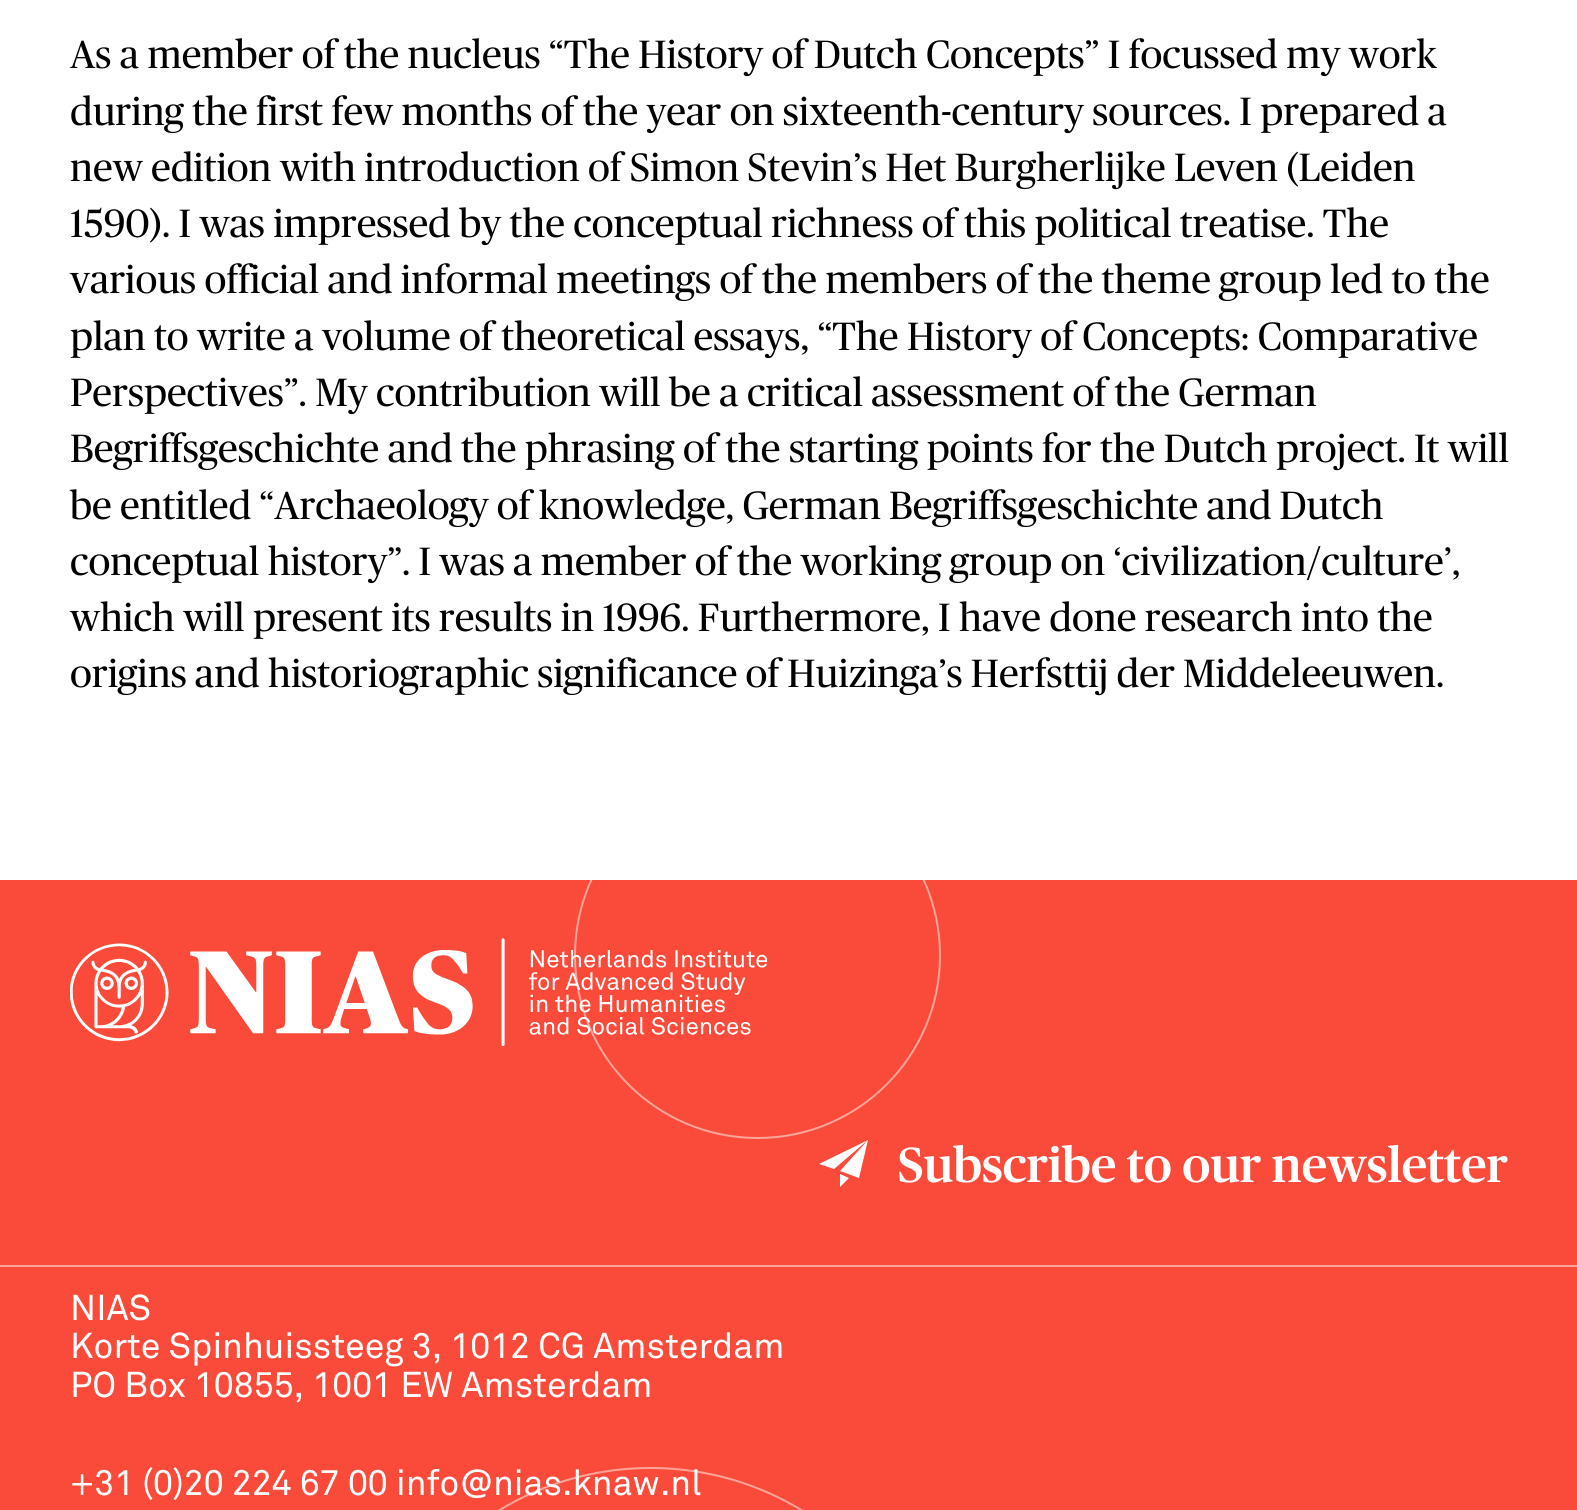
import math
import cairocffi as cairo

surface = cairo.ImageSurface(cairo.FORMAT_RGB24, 1577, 1510)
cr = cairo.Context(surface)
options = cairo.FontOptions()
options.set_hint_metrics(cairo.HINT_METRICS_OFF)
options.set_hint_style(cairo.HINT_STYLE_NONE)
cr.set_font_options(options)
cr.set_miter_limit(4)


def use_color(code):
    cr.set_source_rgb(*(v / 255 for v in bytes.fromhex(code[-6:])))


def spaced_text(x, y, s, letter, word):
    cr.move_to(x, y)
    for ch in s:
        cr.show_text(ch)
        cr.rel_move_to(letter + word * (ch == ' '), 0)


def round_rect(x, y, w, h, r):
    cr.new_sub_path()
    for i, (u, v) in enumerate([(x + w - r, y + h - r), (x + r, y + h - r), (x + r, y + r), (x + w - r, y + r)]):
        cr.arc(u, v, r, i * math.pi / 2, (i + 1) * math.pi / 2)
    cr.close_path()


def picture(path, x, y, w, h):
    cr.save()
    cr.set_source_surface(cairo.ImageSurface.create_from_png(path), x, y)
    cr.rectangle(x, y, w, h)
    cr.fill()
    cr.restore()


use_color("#ffffff")
cr.paint()
cr.select_font_face("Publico")
cr.set_font_size(39.4)
use_color("#000000")
cr.move_to(70, 68)
cr.show_text("As a member of the nucleus “The History of Dutch Concepts” I focussed my work")
cr.move_to(70, 125)
cr.show_text("during the first few months of the year on sixteenth-century sources. I prepared a")
spaced_text(70, 181, "new edition with introduction of Simon Stevin’s Het Burgherlijke Leven (Leiden", 0, -0.1)
cr.move_to(70, 237)
cr.show_text("1590). I was impressed by the conceptual richness of this political treatise. The")
cr.move_to(70, 293)
cr.show_text("various official and informal meetings of the members of the theme group led to the")
cr.move_to(70, 350)
cr.show_text("plan to write a volume of theoretical essays, “The History of Concepts: Comparative")
cr.move_to(70, 406)
cr.show_text("Perspectives”. My contribution will be a critical assessment of the German")
cr.move_to(70, 462)
cr.show_text("Begriffsgeschichte and the phrasing of the starting points for the Dutch project. It will")
spaced_text(70, 519, "be entitled “Archaeology of knowledge, German Begriffsgeschichte and Dutch", 0, -0.25)
spaced_text(70, 575, "conceptual history”. I was a member of the working group on ‘civilization/culture’,", 0, -0.1)
cr.move_to(70, 631)
cr.show_text("which will present its results in 1996. Furthermore, I have done research into the")
spaced_text(70, 687, "origins and historiographic significance of Huizinga’s Herfsttij der Middeleeuwen.", 0, -0.25)
use_color("#fa4a39")
cr.rectangle(0, 880, 1577, 630)
cr.fill()
picture("img1.png", 70, 938, 697, 108)
cr.save()
cr.rectangle(0, 880, 1577, 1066)
cr.clip()
cr.arc(757.5, 955.5, 182.5, 0, 2 * math.pi)
cr.set_source_rgba(1, 1, 1, 0.5)
cr.stroke()
cr.restore()
use_color("#ffffff")
cr.new_path()
cr.move_to(840, 1171)
cr.line_to(859, 1178)
cr.line_to(868, 1140)
cr.close_path()
cr.move_to(834, 1169)
cr.line_to(868, 1140)
cr.line_to(819, 1164)
cr.close_path()
cr.move_to(840, 1174)
cr.line_to(840, 1187)
cr.line_to(849, 1178)
cr.close_path()
cr.fill()
cr.select_font_face("Publico Medium")
cr.set_font_size(49.1)
cr.move_to(898, 1182)
cr.show_text("Subscribe to our newsletter")
cr.select_font_face("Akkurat")
cr.set_font_size(35.6)
cr.move_to(70, 1320)
cr.show_text("NIAS")
cr.move_to(70, 1358)
cr.show_text("Korte Spinhuissteeg 3, 1012 CG Amsterdam")
cr.move_to(70, 1397)
cr.show_text("PO Box 10855, 1001 EW Amsterdam")
cr.move_to(70, 1495)
cr.show_text("+31 (0)20 224 67 00 info@nias.knaw.nl")
round_rect(359, 1468, 583, 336, 291.5)
cr.set_source_rgba(1, 1, 1, 0.5)
cr.stroke()
use_color("#fda59c")
cr.rectangle(0, 1265, 1577, 2)
cr.fill()
surface.write_to_png("result.png")
